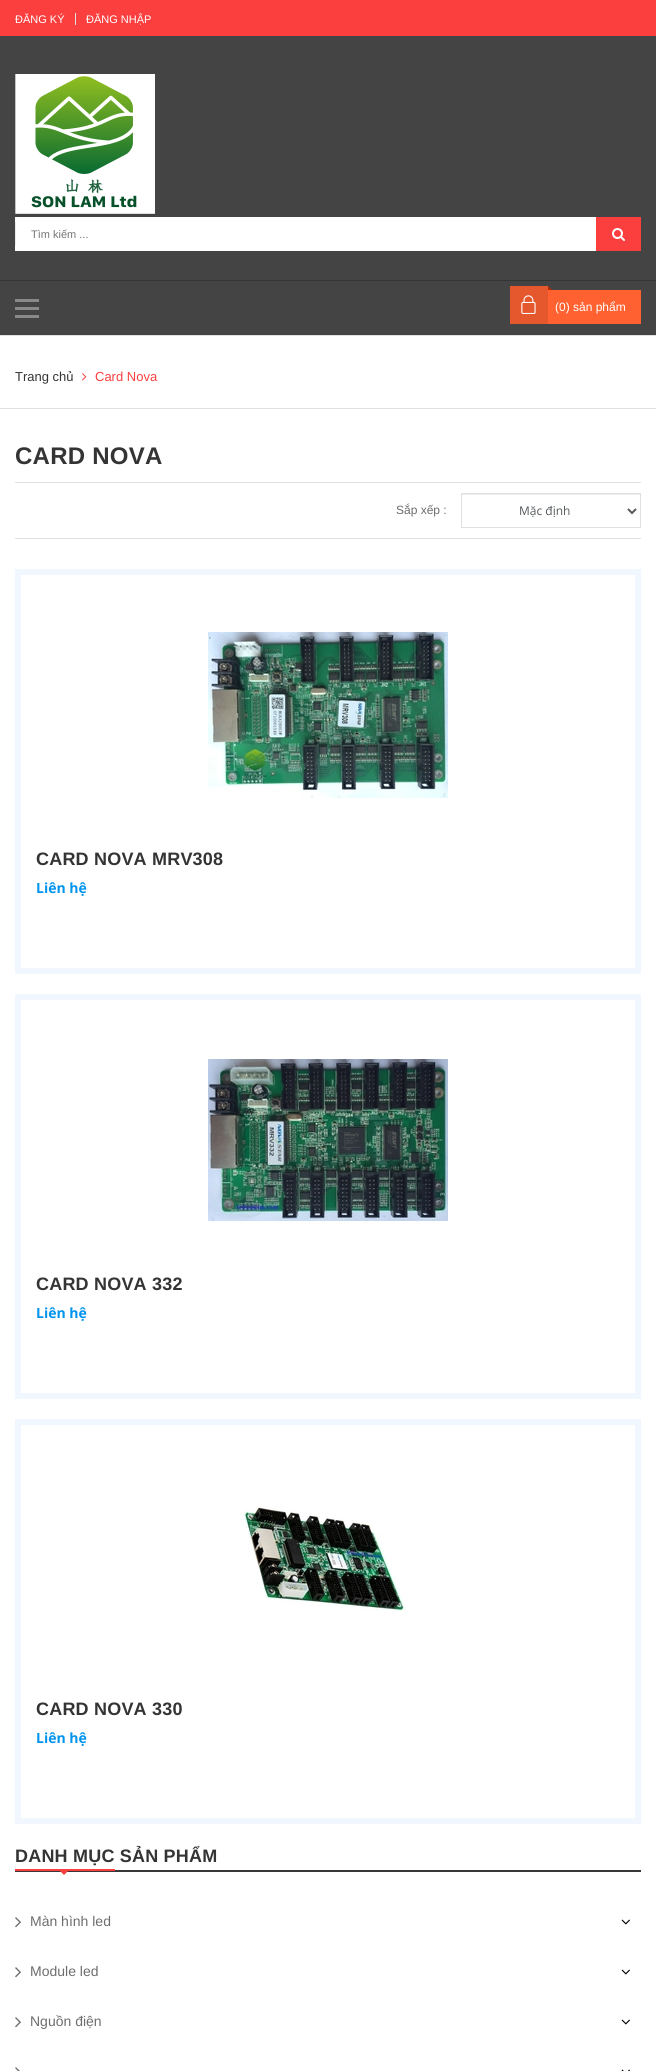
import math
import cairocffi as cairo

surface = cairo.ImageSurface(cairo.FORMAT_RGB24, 656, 2071)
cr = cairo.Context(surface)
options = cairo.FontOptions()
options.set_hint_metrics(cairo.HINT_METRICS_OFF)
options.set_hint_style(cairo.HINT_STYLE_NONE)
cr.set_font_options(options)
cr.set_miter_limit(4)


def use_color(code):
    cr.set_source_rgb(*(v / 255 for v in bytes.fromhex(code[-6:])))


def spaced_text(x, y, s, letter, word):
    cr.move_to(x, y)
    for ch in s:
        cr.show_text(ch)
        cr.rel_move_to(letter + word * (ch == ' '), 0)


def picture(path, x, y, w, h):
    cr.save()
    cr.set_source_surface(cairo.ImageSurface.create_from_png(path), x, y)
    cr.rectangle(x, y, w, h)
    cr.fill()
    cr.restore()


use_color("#ffffff")
cr.paint()
use_color("#fb3f3f")
cr.rectangle(0, 0, 656, 36)
cr.fill()
cr.select_font_face("Liberation Sans")
cr.set_font_size(11)
use_color("#ffffff")
cr.move_to(15, 23)
cr.show_text("ĐĂNG KÝ")
use_color("#e0e0e0")
cr.rectangle(75, 13, 1, 12)
cr.fill()
use_color("#ffffff")
cr.move_to(86, 23)
cr.show_text("ĐĂNG NHẬP")
use_color("#444444")
cr.rectangle(0, 36, 656, 299)
cr.fill()
picture("img1.png", 15, 74, 140, 140)
use_color("#ffffff")
cr.rectangle(15, 217, 581, 34)
cr.fill()
use_color("#ebebeb")
cr.rectangle(15, 222, 1, 24)
cr.fill()
use_color("#757575")
cr.move_to(31, 238)
cr.show_text("Tìm kiếm ...")
use_color("#fb3f3f")
cr.rectangle(596, 217, 45, 34)
cr.fill()
picture("img2.png", 612, 228, 13, 13)
use_color("#ff6131")
cr.rectangle(548, 290, 93, 34)
cr.fill()
use_color("#e5572c")
cr.rectangle(510, 286, 38, 38)
cr.fill()
picture("img3.png", 521, 295, 15, 19)
use_color("#b12900")
cr.new_path()
cr.move_to(552, 290)
cr.line_to(548, 290)
cr.line_to(548, 286)
cr.close_path()
cr.fill()
cr.set_font_size(12)
use_color("#ffffff")
cr.move_to(555, 311)
cr.show_text("(0) sản phẩm")
use_color("#343434")
cr.rectangle(0, 280, 656, 1)
cr.fill()
picture("img4.png", 15, 299, 24, 19)
use_color("#e0e0e0")
cr.rectangle(0, 335, 656, 1)
cr.fill()
cr.rectangle(0, 408, 656, 1)
cr.fill()
cr.set_font_size(13)
use_color("#343434")
cr.move_to(15, 381)
cr.show_text("Trang chủ")
picture("img5.png", 82, 373, 5, 8)
use_color("#fb3f3f")
cr.move_to(95, 381)
cr.show_text("Card Nova")
cr.select_font_face("Liberation Sans", cairo.FONT_SLANT_NORMAL, cairo.FONT_WEIGHT_BOLD)
cr.set_font_size(24)
use_color("#343434")
spaced_text(15, 464, "CARD NOVA", 0.25, 0)
use_color("#e0e0e0")
cr.rectangle(15, 482, 626, 1)
cr.fill()
cr.rectangle(15, 538, 626, 1)
cr.fill()
cr.select_font_face("Liberation Sans")
cr.set_font_size(12)
use_color("#6d6d6d")
cr.move_to(396, 514)
cr.show_text("Sắp xếp :")
use_color("#ececec")
cr.rectangle(462, 494, 178, 1)
cr.fill()
cr.rectangle(461.5, 493.5, 179, 34)
use_color("#e0e0e0")
cr.set_line_width(1)
cr.stroke()
cr.new_path()
cr.move_to(628, 509)
cr.line_to(632, 513)
cr.line_to(636, 509)
use_color("#55595c")
cr.set_line_width(2)
cr.stroke()
cr.select_font_face("Open Sans")
cr.move_to(519, 515)
cr.show_text("Mặc định")
cr.rectangle(18, 572, 620, 399)
use_color("#f0f7ff")
cr.set_line_width(6)
cr.stroke()
picture("img6.png", 208, 632, 240, 166)
cr.select_font_face("Liberation Sans", cairo.FONT_SLANT_NORMAL, cairo.FONT_WEIGHT_BOLD)
cr.set_font_size(18)
use_color("#343434")
spaced_text(36, 865, "CARD NOVA MRV308", 0.2, 0)
cr.select_font_face("Open Sans", cairo.FONT_SLANT_NORMAL, cairo.FONT_WEIGHT_BOLD)
cr.set_font_size(14)
use_color("#0094ee")
cr.move_to(36, 893)
cr.show_text("Liên hệ")
cr.rectangle(18, 997, 620, 399)
use_color("#f0f7ff")
cr.stroke()
picture("img7.png", 208, 1059, 240, 162)
cr.select_font_face("Liberation Sans", cairo.FONT_SLANT_NORMAL, cairo.FONT_WEIGHT_BOLD)
cr.set_font_size(18)
use_color("#343434")
spaced_text(36, 1290, "CARD NOVA 332", 0.2, 0)
cr.select_font_face("Open Sans", cairo.FONT_SLANT_NORMAL, cairo.FONT_WEIGHT_BOLD)
cr.set_font_size(14)
use_color("#0094ee")
cr.move_to(36, 1318)
cr.show_text("Liên hệ")
cr.rectangle(18, 1422, 620, 399)
use_color("#f0f7ff")
cr.stroke()
picture("img8.png", 243, 1507, 162, 105)
cr.select_font_face("Liberation Sans", cairo.FONT_SLANT_NORMAL, cairo.FONT_WEIGHT_BOLD)
cr.set_font_size(18)
use_color("#343434")
spaced_text(36, 1715, "CARD NOVA 330", 0.2, 0)
cr.select_font_face("Open Sans", cairo.FONT_SLANT_NORMAL, cairo.FONT_WEIGHT_BOLD)
cr.set_font_size(14)
use_color("#0094ee")
cr.move_to(36, 1743)
cr.show_text("Liên hệ")
use_color("#383838")
cr.rectangle(15, 1870, 626, 2)
cr.fill()
cr.select_font_face("Liberation Sans", cairo.FONT_SLANT_NORMAL, cairo.FONT_WEIGHT_BOLD)
cr.set_font_size(18)
use_color("#343434")
spaced_text(15, 1862, "DANH MỤC SẢN PHẨM", 0.2, 0)
use_color("#fb3f3f")
cr.rectangle(15, 1869, 100, 2)
cr.fill()
cr.new_path()
cr.move_to(60, 1871)
cr.line_to(68, 1871)
cr.line_to(64, 1875)
cr.close_path()
cr.fill()
picture("img9.png", 15, 1917, 6, 11)
cr.select_font_face("Liberation Sans")
cr.set_font_size(14)
use_color("#6d6d6d")
cr.move_to(30, 1926)
cr.show_text("Màn hình led")
picture("img10.png", 621, 1919, 9, 6)
picture("img9.png", 15, 1967, 6, 11)
cr.move_to(30, 1976)
cr.show_text("Module led")
picture("img10.png", 621, 1969, 9, 6)
picture("img9.png", 15, 2017, 6, 11)
cr.move_to(30, 2026)
cr.show_text("Nguồn điện")
picture("img10.png", 621, 2019, 9, 6)
picture("img11.png", 15, 2067, 5, 4)
picture("img12.png", 621, 2069, 9, 2)
surface.write_to_png("result.png")
